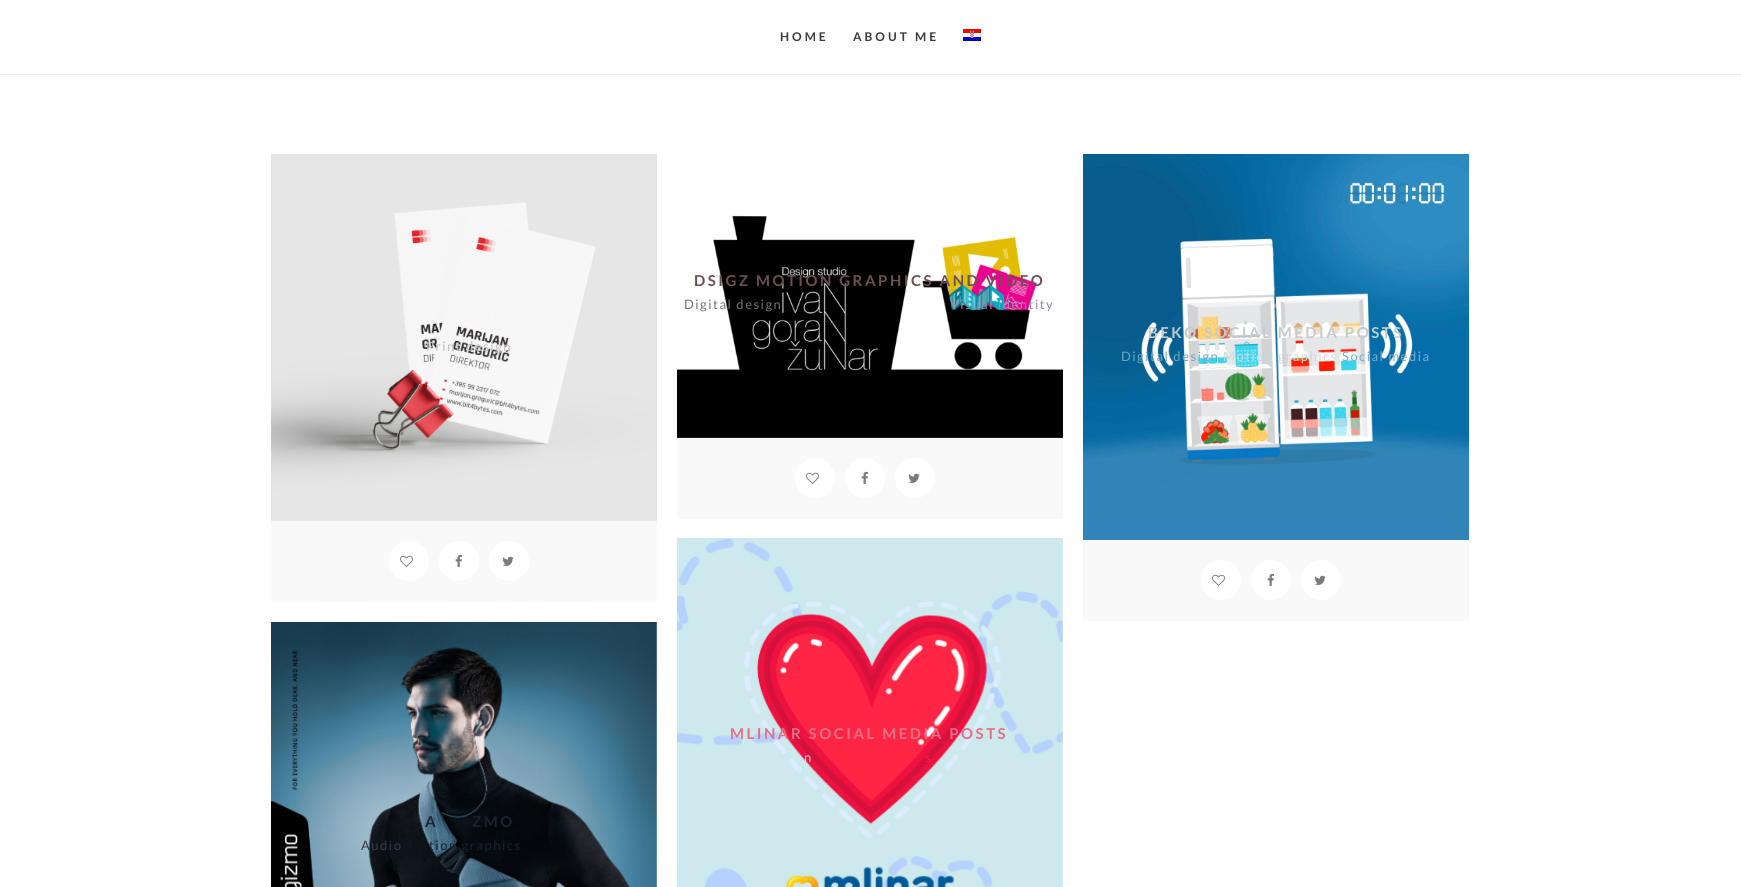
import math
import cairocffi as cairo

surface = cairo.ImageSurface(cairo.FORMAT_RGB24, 1741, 887)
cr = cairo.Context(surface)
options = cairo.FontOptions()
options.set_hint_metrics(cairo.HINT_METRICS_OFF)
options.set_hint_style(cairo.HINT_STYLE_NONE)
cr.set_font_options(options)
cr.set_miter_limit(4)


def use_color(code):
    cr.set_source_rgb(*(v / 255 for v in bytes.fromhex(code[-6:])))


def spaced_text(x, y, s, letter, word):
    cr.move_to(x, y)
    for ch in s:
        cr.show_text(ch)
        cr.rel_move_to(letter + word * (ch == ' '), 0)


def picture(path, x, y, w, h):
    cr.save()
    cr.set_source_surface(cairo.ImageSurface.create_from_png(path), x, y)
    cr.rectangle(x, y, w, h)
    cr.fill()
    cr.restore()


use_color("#ffffff")
cr.paint()
use_color("#ededed")
cr.rectangle(0, 74, 1741, 1)
cr.fill()
cr.select_font_face("Lato", cairo.FONT_SLANT_NORMAL, cairo.FONT_WEIGHT_BOLD)
cr.set_font_size(12)
use_color("#3a3a3a")
spaced_text(780, 41, "HOME", 3, 0)
spaced_text(853, 41, "ABOUT ME", 3, 0)
picture("img1.png", 963, 29, 18, 12)
use_color("#f9f9f9")
cr.rectangle(677, 437, 386, 82)
cr.fill()
picture("img2.png", 677, 154, 386, 284)
cr.set_font_size(15)
use_color("#6d5054")
spaced_text(694, 286, "DSIGZ MOTION GRAPHICS AND VIDEO", 2.5, 0)
cr.select_font_face("Lato")
cr.set_font_size(13)
use_color("#747374")
spaced_text(684, 309, "Digital design", 1.5, 0)
use_color("#958ab2")
spaced_text(950, 309, "Visual identity", 1.5, 0)
use_color("#ffffff")
cr.new_path()
cr.arc(815, 478, 20, 0, 2 * math.pi)
cr.fill()
picture("img3.png", 806, 472, 13, 12)
cr.arc(865, 478, 20, 0, 2 * math.pi)
cr.fill()
picture("img4.png", 861, 471, 7, 13)
cr.arc(915, 478, 20, 0, 2 * math.pi)
cr.fill()
picture("img5.png", 908, 473, 12, 10)
use_color("#f9f9f9")
cr.rectangle(271, 520, 386, 82)
cr.fill()
picture("img6.png", 271, 154, 386, 367)
use_color("#c0bfbf")
spaced_text(426, 351, "Print design", 1.5, 0)
use_color("#ffffff")
cr.new_path()
cr.arc(409, 561, 20, 0, 2 * math.pi)
cr.fill()
picture("img3.png", 400, 555, 13, 12)
cr.arc(459, 561, 20, 0, 2 * math.pi)
cr.fill()
picture("img4.png", 455, 554, 7, 13)
cr.arc(509, 561, 20, 0, 2 * math.pi)
cr.fill()
picture("img5.png", 502, 556, 12, 10)
use_color("#f9f9f9")
cr.rectangle(1083, 540, 386, 81)
cr.fill()
picture("img7.png", 1083, 154, 386, 386)
cr.select_font_face("Lato", cairo.FONT_SLANT_NORMAL, cairo.FONT_WEIGHT_BOLD)
cr.set_font_size(15)
use_color("#c4cccb")
spaced_text(1148, 338, "BEKO SOCIAL MEDIA POSTS", 2.5, 0)
cr.select_font_face("Lato")
cr.set_font_size(13)
use_color("#69a6c2")
spaced_text(1121, 361, "Digital design", 1.5, 0)
use_color("#cadad9")
spaced_text(1223, 361, "Motion graphics", 1.5, 0)
use_color("#76aece")
spaced_text(1342, 361, "Social media", 1.5, 0)
use_color("#ffffff")
cr.new_path()
cr.arc(1221, 580, 20, 0, 2 * math.pi)
cr.fill()
picture("img3.png", 1212, 574, 13, 12)
cr.arc(1271, 580, 20, 0, 2 * math.pi)
cr.fill()
picture("img4.png", 1267, 573, 7, 13)
cr.arc(1321, 580, 20, 0, 2 * math.pi)
cr.fill()
picture("img5.png", 1314, 575, 12, 10)
picture("img8.png", 677, 538, 386, 349)
cr.select_font_face("Lato", cairo.FONT_SLANT_NORMAL, cairo.FONT_WEIGHT_BOLD)
cr.set_font_size(15)
use_color("#e66f88")
spaced_text(730, 739, "MLINAR SOCIAL MEDIA POSTS", 2.5, 0)
cr.select_font_face("Lato")
cr.set_font_size(13)
use_color("#cfd9e1")
spaced_text(804, 762, "n", 1.5, 0)
use_color("#f92143")
spaced_text(925, 762, "s", 1.5, 0)
picture("img9.png", 271, 622, 386, 265)
cr.select_font_face("Lato", cairo.FONT_SLANT_NORMAL, cairo.FONT_WEIGHT_BOLD)
cr.set_font_size(15)
use_color("#18242e")
spaced_text(425, 827, "A", 2.5, 0)
spaced_text(472, 827, "ZMO", 2.5, 0)
cr.select_font_face("Lato")
cr.set_font_size(13)
use_color("#313c45")
spaced_text(361, 850, "Audio", 1.5, 0)
use_color("#18242e")
spaced_text(429, 850, "tion graphics", 1.5, 0)
surface.write_to_png("result.png")
